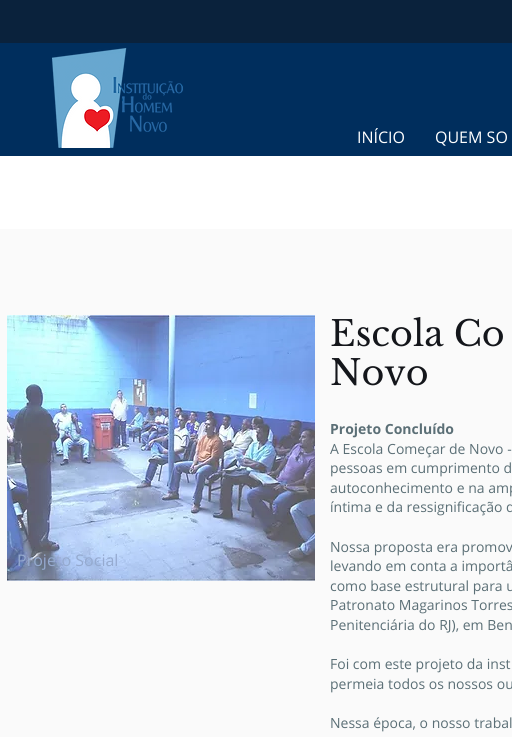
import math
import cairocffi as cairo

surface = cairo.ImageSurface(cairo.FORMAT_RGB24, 512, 737)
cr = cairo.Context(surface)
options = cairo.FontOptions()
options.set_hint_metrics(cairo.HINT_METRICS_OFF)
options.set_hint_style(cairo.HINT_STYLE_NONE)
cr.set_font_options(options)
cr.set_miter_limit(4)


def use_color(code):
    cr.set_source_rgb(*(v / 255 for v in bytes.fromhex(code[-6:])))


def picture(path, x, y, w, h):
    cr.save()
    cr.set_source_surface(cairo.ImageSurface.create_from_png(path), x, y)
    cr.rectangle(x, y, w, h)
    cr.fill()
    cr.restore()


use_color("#ffffff")
cr.paint()
use_color("#002e5d")
cr.rectangle(0, 43, 512, 113)
cr.fill()
use_color("#0a223c")
cr.rectangle(0, 0, 512, 43)
cr.fill()
picture("img1.png", 52, 48, 131, 100)
cr.select_font_face("Open Sans")
cr.set_font_size(16)
use_color("#ffffff")
cr.move_to(357, 143)
cr.show_text("INÍCIO")
cr.move_to(435, 143)
cr.show_text("QUEM SO")
use_color("#fafafa")
cr.rectangle(0, 229, 512, 508)
cr.fill()
cr.select_font_face("Libre Baskerville")
cr.set_font_size(35)
use_color("#14161b")
cr.move_to(330, 346)
cr.show_text("Escola Co")
cr.move_to(330, 385)
cr.show_text("Novo")
picture("img2.png", 7, 315, 308, 266)
cr.select_font_face("Open Sans")
cr.set_font_size(16)
use_color("#95aacf")
cr.move_to(17, 566)
cr.show_text("Projeto Social")
cr.select_font_face("Open Sans", cairo.FONT_SLANT_NORMAL, cairo.FONT_WEIGHT_BOLD)
cr.set_font_size(14)
use_color("#5b6f76")
cr.move_to(330, 434)
cr.show_text("Projeto Concluído")
cr.select_font_face("Open Sans")
cr.move_to(330, 454)
cr.show_text("A Escola Começar de Novo -")
cr.move_to(330, 473)
cr.show_text("pessoas em cumprimento d")
cr.move_to(330, 493)
cr.show_text("autoconhecimento e na amp")
cr.move_to(330, 512)
cr.show_text("íntima e da ressignificação d")
cr.move_to(330, 552)
cr.show_text("Nossa proposta era promov")
cr.move_to(330, 571)
cr.show_text("levando em conta a importâ")
cr.move_to(330, 591)
cr.show_text("como base estrutural para u")
cr.move_to(330, 610)
cr.show_text("Patronato Magarinos Torres")
cr.move_to(330, 630)
cr.show_text("Penitenciária do RJ), em Ben")
cr.move_to(330, 669)
cr.show_text("Foi com este projeto da inst")
cr.move_to(330, 689)
cr.show_text("permeia todos os nossos ou")
cr.move_to(330, 728)
cr.show_text("Nessa época, o nosso trabal")
surface.write_to_png("result.png")
